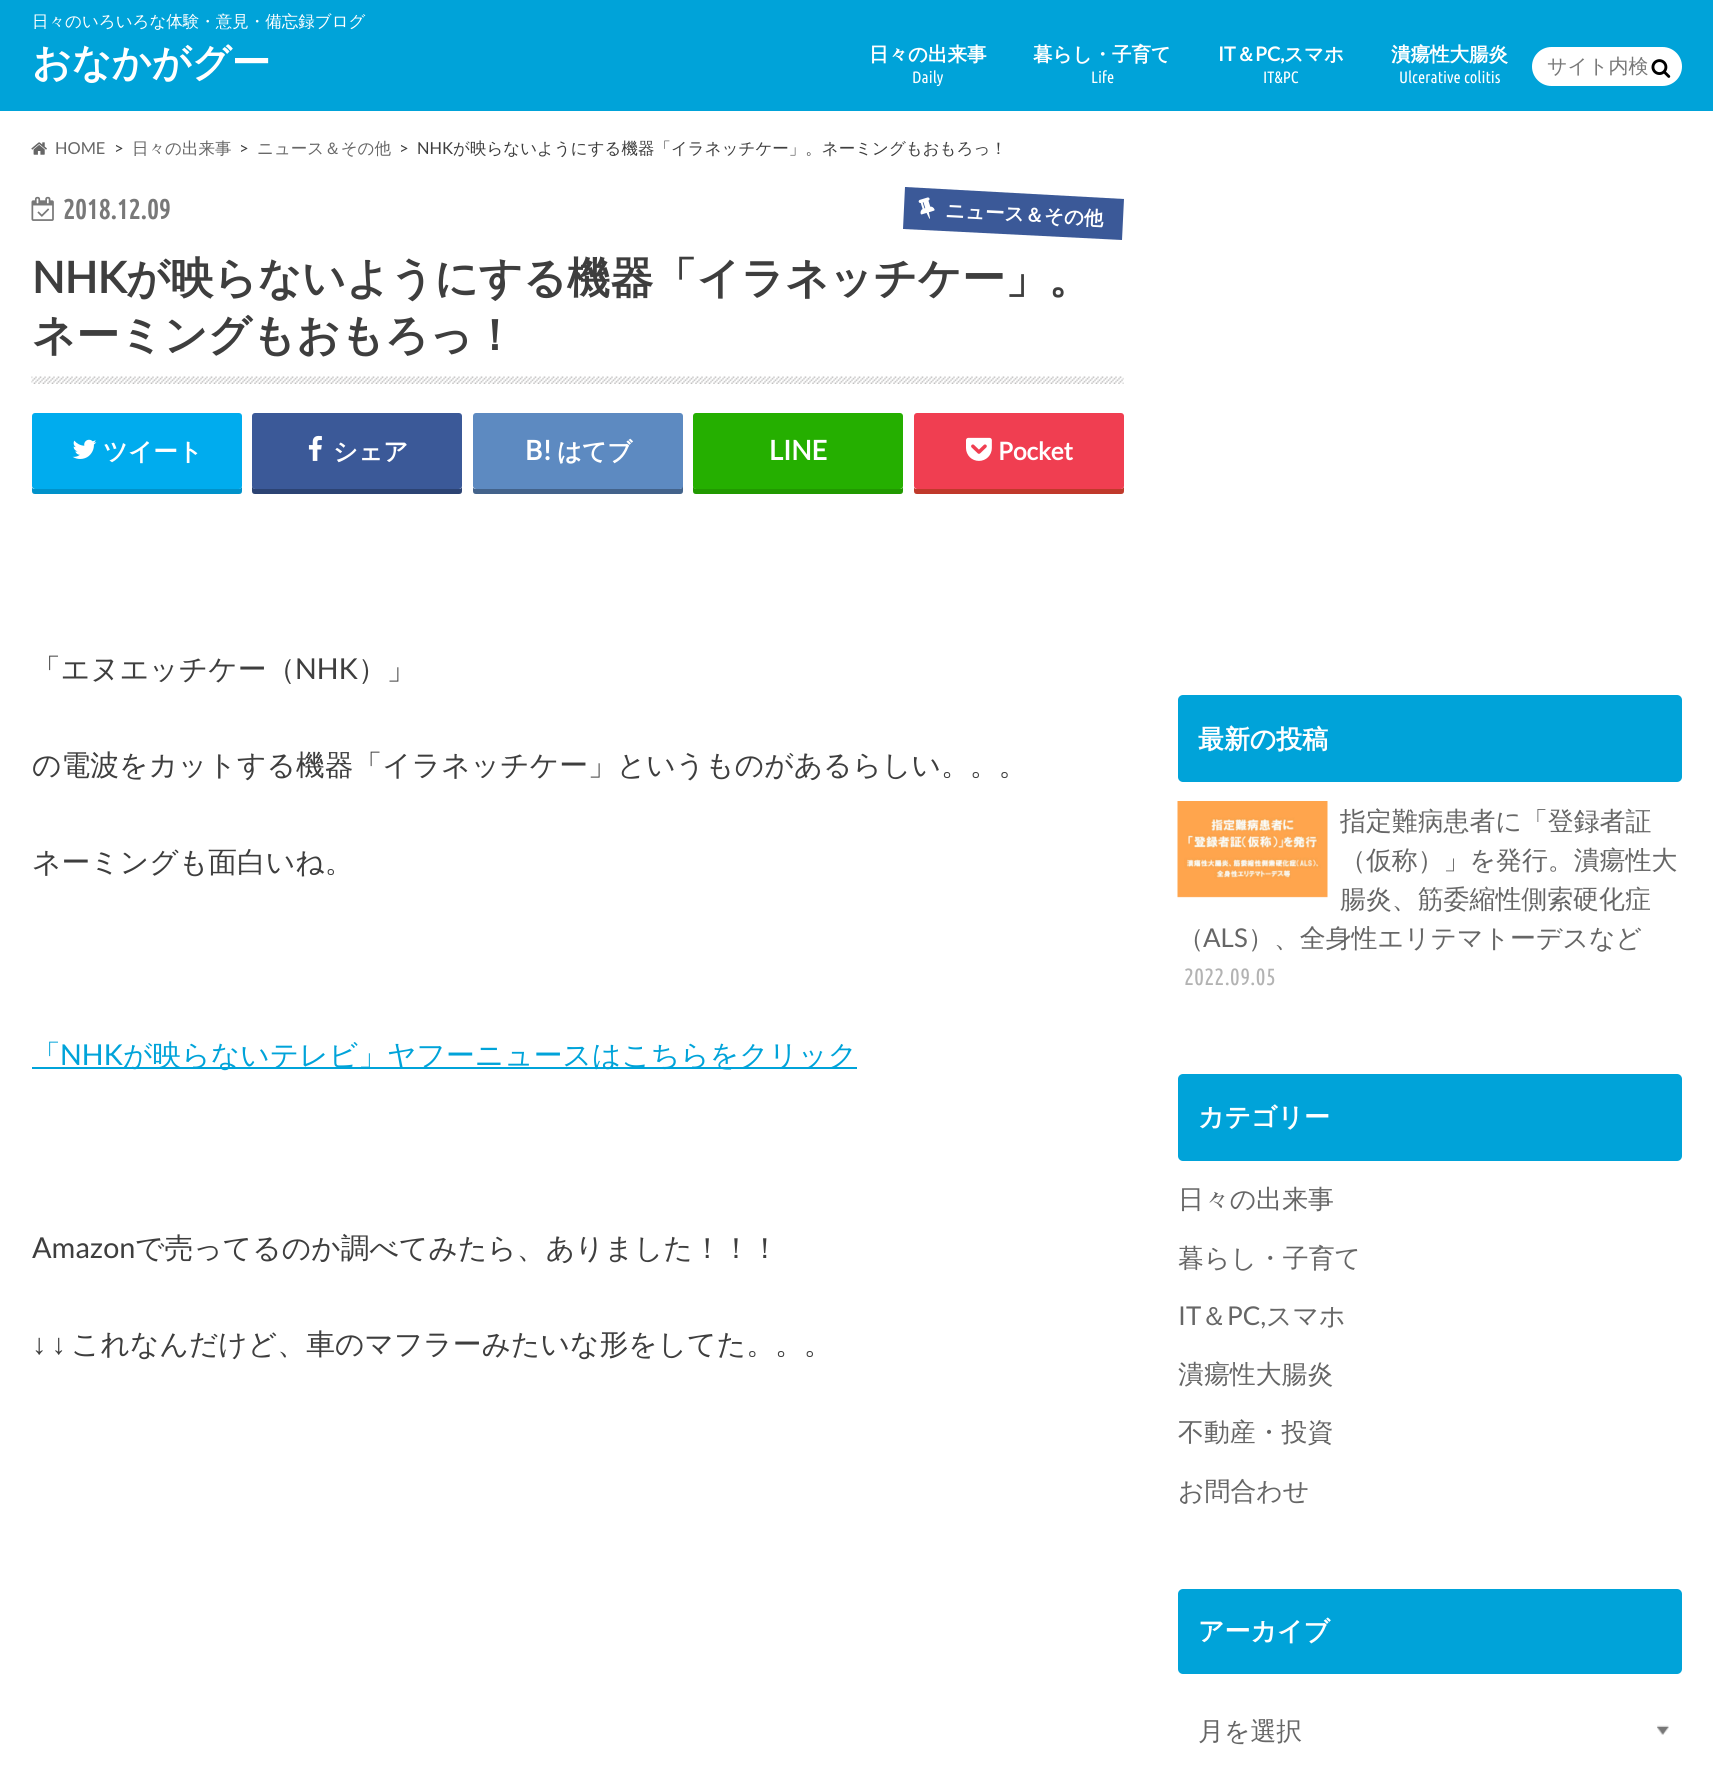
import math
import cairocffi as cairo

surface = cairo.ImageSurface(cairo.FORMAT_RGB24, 1713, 1783)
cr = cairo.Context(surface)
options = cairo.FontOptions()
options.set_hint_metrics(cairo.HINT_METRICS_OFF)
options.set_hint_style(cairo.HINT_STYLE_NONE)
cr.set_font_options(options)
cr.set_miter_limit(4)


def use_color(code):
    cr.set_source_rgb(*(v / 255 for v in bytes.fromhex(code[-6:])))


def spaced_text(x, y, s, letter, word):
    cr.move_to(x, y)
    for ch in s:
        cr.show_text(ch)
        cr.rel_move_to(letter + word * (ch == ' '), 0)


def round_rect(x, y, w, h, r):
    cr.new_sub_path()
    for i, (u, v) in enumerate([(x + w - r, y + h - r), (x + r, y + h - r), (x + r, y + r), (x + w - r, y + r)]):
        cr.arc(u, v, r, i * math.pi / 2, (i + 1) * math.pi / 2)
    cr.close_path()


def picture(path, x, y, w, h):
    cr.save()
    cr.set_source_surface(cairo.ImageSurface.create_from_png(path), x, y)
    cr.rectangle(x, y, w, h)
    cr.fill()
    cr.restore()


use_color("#ffffff")
cr.paint()
use_color("#00a3d9")
cr.rectangle(0, 0, 1713, 111)
cr.fill()
cr.select_font_face("WenQuanYi Zen Hei Medium")
cr.set_font_size(16.5)
use_color("#ffffff")
cr.move_to(32, 27)
cr.show_text("日々のいろいろな体験・意見・備忘録ブログ")
cr.select_font_face("WenQuanYi Zen Hei", cairo.FONT_SLANT_NORMAL, cairo.FONT_WEIGHT_BOLD)
cr.set_font_size(39)
cr.move_to(32, 76)
cr.show_text("おなかがグー")
cr.set_font_size(19.5)
cr.move_to(869, 61)
cr.show_text("日々の出来事")
cr.select_font_face("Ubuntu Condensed")
cr.set_font_size(16.5)
cr.move_to(912, 83)
cr.show_text("Daily")
cr.select_font_face("WenQuanYi Zen Hei", cairo.FONT_SLANT_NORMAL, cairo.FONT_WEIGHT_BOLD)
cr.set_font_size(19.5)
cr.move_to(1033, 61)
cr.show_text("暮らし・子育て")
cr.select_font_face("Ubuntu Condensed")
cr.set_font_size(16.5)
cr.move_to(1091, 83)
cr.show_text("Life")
cr.select_font_face("Lato", cairo.FONT_SLANT_NORMAL, cairo.FONT_WEIGHT_BOLD)
cr.set_font_size(19.5)
cr.move_to(1218, 61)
cr.show_text("IT")
cr.select_font_face("WenQuanYi Zen Hei", cairo.FONT_SLANT_NORMAL, cairo.FONT_WEIGHT_BOLD)
cr.move_to(1236, 61)
cr.show_text("＆")
cr.select_font_face("Lato", cairo.FONT_SLANT_NORMAL, cairo.FONT_WEIGHT_BOLD)
cr.move_to(1255, 61)
cr.show_text("PC,")
cr.select_font_face("WenQuanYi Zen Hei", cairo.FONT_SLANT_NORMAL, cairo.FONT_WEIGHT_BOLD)
cr.move_to(1284, 61)
cr.show_text("スマホ")
cr.select_font_face("Ubuntu Condensed")
cr.set_font_size(16.5)
cr.move_to(1263, 83)
cr.show_text("IT&PC")
cr.select_font_face("WenQuanYi Zen Hei", cairo.FONT_SLANT_NORMAL, cairo.FONT_WEIGHT_BOLD)
cr.set_font_size(19.5)
cr.move_to(1391, 61)
cr.show_text("潰瘍性大腸炎")
cr.select_font_face("Ubuntu Condensed")
cr.set_font_size(16.5)
cr.move_to(1399, 83)
cr.show_text("Ulcerative colitis")
round_rect(1532, 47, 150, 39, 19.5)
cr.fill()
cr.select_font_face("WenQuanYi Zen Hei Medium")
cr.set_font_size(20)
use_color("#787878")
cr.move_to(1547, 73)
cr.show_text("サイト内検")
picture("img1.png", 1651, 59, 20, 19)
picture("img2.png", 31, 142, 16, 13)
cr.select_font_face("Lato")
cr.set_font_size(16.5)
use_color("#666666")
cr.move_to(55, 154)
cr.show_text("HOME")
use_color("#3e3e3e")
cr.move_to(114, 154)
cr.show_text(">")
cr.select_font_face("WenQuanYi Zen Hei Medium")
use_color("#666666")
cr.move_to(132, 154)
cr.show_text("日々の出来事")
cr.select_font_face("Lato")
use_color("#3e3e3e")
cr.move_to(239, 154)
cr.show_text(">")
cr.select_font_face("WenQuanYi Zen Hei Medium")
use_color("#666666")
cr.move_to(257, 154)
cr.show_text("ニュース＆その他")
cr.select_font_face("Lato")
use_color("#3e3e3e")
cr.move_to(399, 154)
cr.show_text(">")
cr.move_to(417, 154)
cr.show_text("NHK")
cr.select_font_face("WenQuanYi Zen Hei Medium")
cr.move_to(453, 154)
cr.show_text("が映らないようにする機器「イラネッチケー」。ネーミングもおもろっ！")
picture("img3.png", 31, 196, 23, 25)
cr.select_font_face("Ubuntu Condensed", cairo.FONT_SLANT_NORMAL, cairo.FONT_WEIGHT_BOLD)
cr.set_font_size(27.5)
use_color("#787878")
cr.move_to(63, 219)
cr.show_text("2018.12.09")
use_color("#3b5998")
cr.new_path()
cr.move_to(905, 187)
cr.line_to(1124, 199)
cr.line_to(1122, 240)
cr.line_to(903, 229)
cr.close_path()
cr.fill()
picture("img4.png", 918, 197, 17, 22)
cr.select_font_face("WenQuanYi Zen Hei", cairo.FONT_SLANT_NORMAL, cairo.FONT_WEIGHT_BOLD)
cr.set_font_size(19.5)
use_color("#ffffff")
cr.save()
cr.translate(945, 217)
cr.rotate(3 * math.pi / 180)
cr.move_to(0, 0)
cr.show_text("ニュース＆その他")
cr.restore()
picture("img5.png", 31, 376, 1093, 8)
cr.select_font_face("Lato", cairo.FONT_SLANT_NORMAL, cairo.FONT_WEIGHT_BOLD)
cr.set_font_size(43.2)
use_color("#3e3e3e")
cr.move_to(32, 293)
cr.show_text("NHK")
cr.select_font_face("WenQuanYi Zen Hei", cairo.FONT_SLANT_NORMAL, cairo.FONT_WEIGHT_BOLD)
cr.move_to(126, 293)
cr.show_text("が映らないようにする機器「イラネッチケー」。")
cr.move_to(32, 350)
cr.show_text("ネーミングもおもろっ！")
use_color("#0092ca")
cr.new_path()
cr.move_to(32, 488)
cr.line_to(32, 491)
cr.curve_to(32, 493, 33, 494, 35, 494)
cr.line_to(239, 494)
cr.curve_to(241, 494, 242, 493, 242, 491)
cr.line_to(242, 420)
cr.line_to(242, 418)
cr.line_to(242, 486)
cr.curve_to(242, 488, 240, 489, 238, 489)
cr.line_to(34, 489)
cr.curve_to(33, 489, 33, 488, 32, 488)
cr.close_path()
cr.fill()
use_color("#00acee")
round_rect(32, 413, 210, 76, 3)
cr.fill()
picture("img6.png", 72, 439, 25, 20)
cr.set_font_size(24.5)
use_color("#ffffff")
cr.move_to(103, 460)
cr.show_text("ツイート")
use_color("#2c4373")
cr.new_path()
cr.move_to(252, 486)
cr.line_to(252, 491)
cr.curve_to(252, 493, 253, 494, 255, 494)
cr.line_to(459, 494)
cr.curve_to(461, 494, 462, 493, 462, 491)
cr.line_to(462, 486)
cr.curve_to(462, 488, 461, 489, 459, 489)
cr.line_to(255, 489)
cr.line_to(253, 488)
cr.close_path()
cr.fill()
use_color("#3b5998")
round_rect(252, 413, 210, 76, 3)
cr.fill()
picture("img7.png", 308, 435, 14, 26)
use_color("#ffffff")
cr.move_to(333, 460)
cr.show_text("シェア")
use_color("#43638b")
cr.new_path()
cr.move_to(473, 488)
cr.line_to(473, 491)
cr.curve_to(473, 493, 474, 494, 476, 494)
cr.line_to(680, 494)
cr.curve_to(682, 494, 683, 493, 683, 491)
cr.line_to(683, 420)
cr.line_to(682, 418)
cr.line_to(682, 486)
cr.curve_to(682, 488, 681, 489, 680, 489)
cr.line_to(476, 489)
cr.curve_to(474, 489, 474, 488, 473, 488)
cr.close_path()
cr.fill()
use_color("#5d8ac1")
round_rect(473, 413, 210, 76, 3)
cr.fill()
cr.select_font_face("Lato", cairo.FONT_SLANT_NORMAL, cairo.FONT_WEIGHT_BOLD)
cr.set_font_size(27)
use_color("#ffffff")
cr.move_to(525, 460)
cr.show_text("B!")
cr.select_font_face("WenQuanYi Zen Hei", cairo.FONT_SLANT_NORMAL, cairo.FONT_WEIGHT_BOLD)
cr.set_font_size(24.5)
cr.move_to(557, 460)
cr.show_text("はてブ")
use_color("#219900")
cr.new_path()
cr.move_to(693, 486)
cr.line_to(693, 491)
cr.curve_to(693, 493, 694, 494, 696, 494)
cr.line_to(900, 494)
cr.curve_to(902, 494, 903, 493, 903, 491)
cr.line_to(903, 486)
cr.curve_to(903, 488, 902, 489, 900, 489)
cr.line_to(696, 489)
cr.line_to(694, 488)
cr.close_path()
cr.fill()
use_color("#25af00")
round_rect(693, 413, 210, 76, 3)
cr.fill()
cr.select_font_face("Lato", cairo.FONT_SLANT_NORMAL, cairo.FONT_WEIGHT_BOLD)
cr.set_font_size(27)
use_color("#ffffff")
cr.move_to(769, 460)
cr.show_text("LINE")
use_color("#c0392b")
cr.new_path()
cr.move_to(914, 488)
cr.line_to(914, 491)
cr.curve_to(914, 493, 915, 494, 917, 494)
cr.line_to(1121, 494)
cr.curve_to(1123, 494, 1124, 493, 1124, 491)
cr.line_to(1124, 420)
cr.line_to(1124, 418)
cr.line_to(1124, 486)
cr.curve_to(1124, 488, 1122, 489, 1120, 489)
cr.line_to(916, 489)
cr.curve_to(915, 489, 915, 488, 914, 488)
cr.close_path()
cr.fill()
use_color("#f03e51")
round_rect(914, 413, 210, 76, 3)
cr.fill()
picture("img8.png", 966, 437, 26, 24)
cr.set_font_size(24.5)
use_color("#ffffff")
cr.move_to(998, 460)
cr.show_text("Pocket")
cr.select_font_face("WenQuanYi Zen Hei Medium")
cr.set_font_size(28.8)
use_color("#3e3e3e")
cr.move_to(32, 679)
cr.show_text("「エヌエッチケー（")
cr.select_font_face("Lato")
cr.move_to(295, 679)
cr.show_text("NHK")
cr.select_font_face("WenQuanYi Zen Hei Medium")
cr.move_to(358, 679)
cr.show_text("）」")
cr.move_to(32, 775)
cr.show_text("の電波をカットする機器「イラネッチケー」というものがあるらしい。。。")
cr.move_to(32, 872)
cr.show_text("ネーミングも面白いね。")
use_color("#00a3d9")
cr.move_to(32, 1065)
cr.show_text("「")
cr.select_font_face("Lato")
cr.move_to(60, 1065)
cr.show_text("NHK")
cr.rectangle(32, 1067, 825, 2)
cr.fill()
cr.select_font_face("WenQuanYi Zen Hei Medium")
cr.move_to(123, 1065)
cr.show_text("が映らないテレビ」ヤフーニュースはこちらをクリック")
cr.select_font_face("Lato")
use_color("#3e3e3e")
cr.move_to(32, 1258)
cr.show_text("Amazon")
cr.select_font_face("WenQuanYi Zen Hei Medium")
cr.move_to(135, 1258)
cr.show_text("で売ってるのか調べてみたら、ありました！！！")
cr.select_font_face("Liberation Sans")
spaced_text(32, 1354, "↓ ↓", 0, -3)
cr.select_font_face("WenQuanYi Zen Hei Medium")
cr.move_to(71, 1354)
cr.show_text("これなんだけど、車のマフラーみたいな形をしてた。。。")
use_color("#00a3d9")
round_rect(1178, 695, 504, 87, 5)
cr.fill()
cr.select_font_face("WenQuanYi Zen Hei", cairo.FONT_SLANT_NORMAL, cairo.FONT_WEIGHT_BOLD)
cr.set_font_size(25.9)
use_color("#ffffff")
cr.move_to(1198, 748)
cr.show_text("最新の投稿")
picture("img9.png", 1177, 801, 151, 97)
cr.select_font_face("WenQuanYi Zen Hei Medium")
use_color("#666666")
cr.move_to(1340, 830)
cr.show_text("指定難病患者に「登録者証")
cr.move_to(1340, 869)
cr.show_text("（仮称）」を発行。潰瘍性大")
cr.move_to(1340, 908)
cr.show_text("腸炎、筋委縮性側索硬化症")
cr.move_to(1178, 947)
cr.show_text("（")
cr.select_font_face("Lato")
cr.move_to(1203, 947)
cr.show_text("ALS")
cr.select_font_face("WenQuanYi Zen Hei Medium")
cr.move_to(1248, 947)
cr.show_text("）、全身性エリテマトーデスなど")
cr.select_font_face("Ubuntu Condensed")
cr.set_font_size(23.5)
use_color("#b3b3b3")
cr.move_to(1184, 985)
cr.show_text("2022.09.05")
use_color("#00a3d9")
round_rect(1178, 1074, 504, 87, 5)
cr.fill()
cr.select_font_face("WenQuanYi Zen Hei", cairo.FONT_SLANT_NORMAL, cairo.FONT_WEIGHT_BOLD)
cr.set_font_size(25.9)
use_color("#ffffff")
cr.move_to(1198, 1126)
cr.show_text("カテゴリー")
cr.select_font_face("WenQuanYi Zen Hei Medium")
use_color("#666666")
cr.move_to(1178, 1208)
cr.show_text("日々の出来事")
cr.move_to(1178, 1267)
cr.show_text("暮らし・子育て")
cr.select_font_face("Lato")
cr.move_to(1178, 1325)
cr.show_text("IT")
cr.select_font_face("WenQuanYi Zen Hei Medium")
cr.move_to(1201, 1325)
cr.show_text("＆")
cr.select_font_face("Lato")
cr.move_to(1227, 1325)
cr.show_text("PC,")
cr.select_font_face("WenQuanYi Zen Hei Medium")
cr.move_to(1266, 1325)
cr.show_text("スマホ")
cr.move_to(1178, 1383)
cr.show_text("潰瘍性大腸炎")
cr.move_to(1178, 1441)
cr.show_text("不動産・投資")
cr.move_to(1178, 1500)
cr.show_text("お問合わせ")
use_color("#00a3d9")
round_rect(1178, 1589, 504, 85, 5)
cr.fill()
cr.select_font_face("WenQuanYi Zen Hei", cairo.FONT_SLANT_NORMAL, cairo.FONT_WEIGHT_BOLD)
use_color("#ffffff")
cr.move_to(1198, 1640)
cr.show_text("アーカイブ")
picture("img10.png", 1657, 1725, 12, 10)
cr.select_font_face("WenQuanYi Zen Hei Medium")
use_color("#666666")
cr.move_to(1198, 1740)
cr.show_text("月を選択")
surface.write_to_png("result.png")
